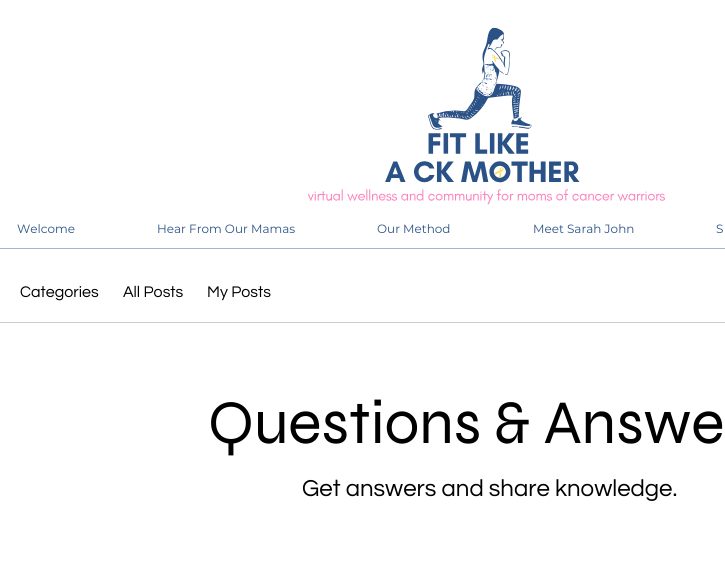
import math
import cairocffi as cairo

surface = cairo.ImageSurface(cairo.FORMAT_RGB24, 725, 564)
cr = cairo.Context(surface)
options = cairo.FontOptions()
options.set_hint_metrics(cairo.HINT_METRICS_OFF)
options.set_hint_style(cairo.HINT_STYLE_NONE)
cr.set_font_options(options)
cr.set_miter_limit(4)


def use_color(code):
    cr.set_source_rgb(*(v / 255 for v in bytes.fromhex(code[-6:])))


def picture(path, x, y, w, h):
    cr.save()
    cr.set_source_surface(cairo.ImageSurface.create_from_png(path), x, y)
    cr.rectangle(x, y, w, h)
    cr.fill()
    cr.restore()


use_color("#ffffff")
cr.paint()
picture("img1.png", 307, 27, 358, 178)
cr.select_font_face("Montserrat")
cr.set_font_size(12)
use_color("#2b5286")
cr.move_to(17, 233)
cr.show_text("Welcome")
cr.move_to(157, 233)
cr.show_text("Hear From Our Mamas")
cr.move_to(377, 233)
cr.show_text("Our Method")
cr.move_to(533, 233)
cr.show_text("Meet Sarah John")
cr.move_to(716, 233)
cr.show_text("S")
use_color("#a5b3d9")
cr.rectangle(0, 248, 725, 1)
cr.fill()
use_color("#cccccc")
cr.rectangle(0, 322, 725, 1)
cr.fill()
cr.select_font_face("Questrial")
cr.set_font_size(16)
use_color("#000000")
cr.move_to(20, 297)
cr.show_text("Categories")
cr.move_to(123, 297)
cr.show_text("All Posts")
cr.move_to(207, 297)
cr.show_text("My Posts")
cr.select_font_face("Syne")
cr.set_font_size(62)
cr.move_to(208, 443)
cr.show_text("Questions & Answe")
cr.select_font_face("Questrial")
cr.set_font_size(24)
cr.move_to(302, 496)
cr.show_text("Get answers and share knowledge.")
surface.write_to_png("result.png")
